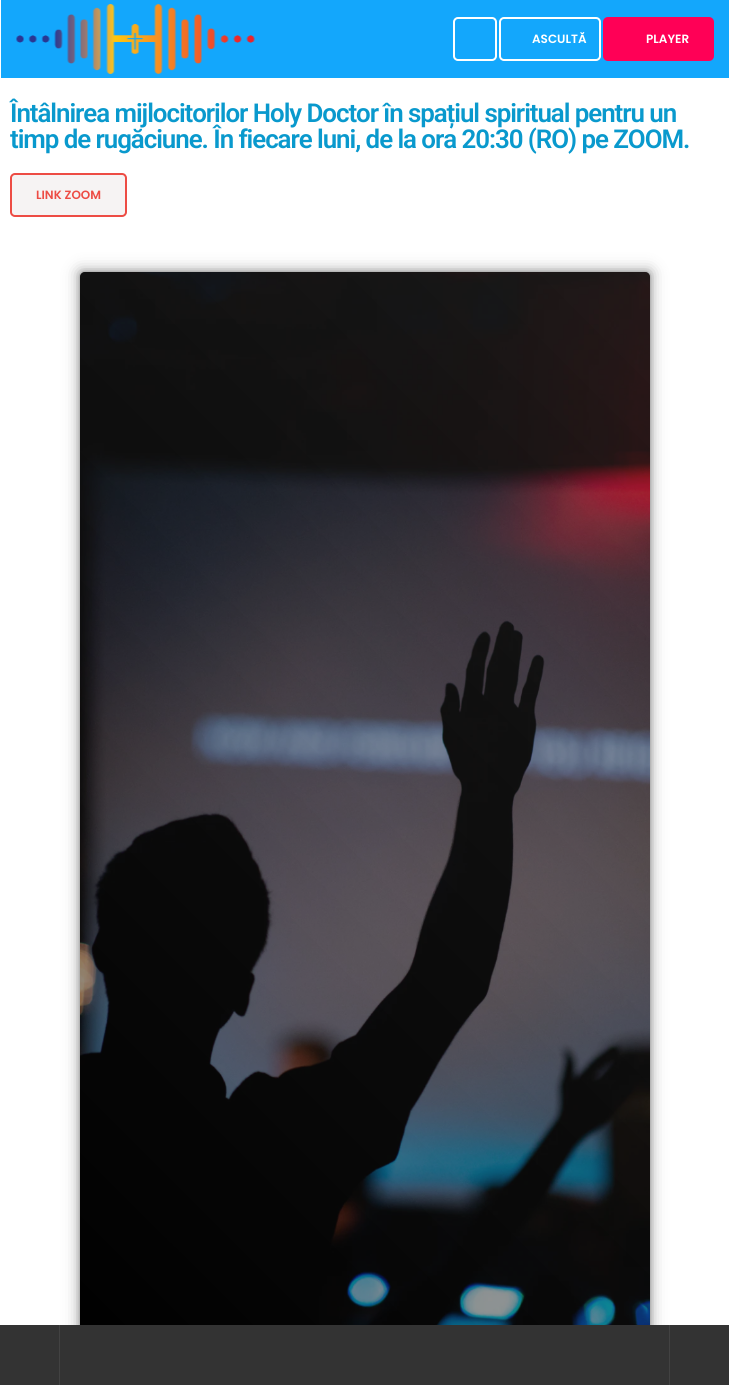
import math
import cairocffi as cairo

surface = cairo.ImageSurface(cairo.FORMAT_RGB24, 729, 1385)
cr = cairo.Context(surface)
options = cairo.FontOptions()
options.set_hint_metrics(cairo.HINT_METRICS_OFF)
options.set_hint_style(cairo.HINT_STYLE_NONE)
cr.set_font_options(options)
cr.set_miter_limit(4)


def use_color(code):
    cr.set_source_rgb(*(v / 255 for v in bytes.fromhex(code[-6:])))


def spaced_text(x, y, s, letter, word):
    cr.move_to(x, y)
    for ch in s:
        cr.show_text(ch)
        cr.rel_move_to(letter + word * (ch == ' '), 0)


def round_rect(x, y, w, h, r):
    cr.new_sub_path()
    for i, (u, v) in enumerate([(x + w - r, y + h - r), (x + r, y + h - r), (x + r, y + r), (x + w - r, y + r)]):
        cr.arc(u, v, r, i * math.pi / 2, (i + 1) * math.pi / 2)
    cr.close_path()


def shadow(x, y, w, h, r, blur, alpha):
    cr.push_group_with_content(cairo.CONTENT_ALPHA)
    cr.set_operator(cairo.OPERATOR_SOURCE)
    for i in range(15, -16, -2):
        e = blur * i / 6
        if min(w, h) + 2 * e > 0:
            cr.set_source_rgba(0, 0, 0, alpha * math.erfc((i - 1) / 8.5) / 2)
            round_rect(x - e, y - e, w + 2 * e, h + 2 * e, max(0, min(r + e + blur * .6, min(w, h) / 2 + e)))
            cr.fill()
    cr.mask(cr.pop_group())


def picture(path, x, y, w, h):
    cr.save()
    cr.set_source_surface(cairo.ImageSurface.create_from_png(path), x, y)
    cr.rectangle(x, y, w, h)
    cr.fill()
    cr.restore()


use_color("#ffffff")
cr.paint()
use_color("#13a7fc")
cr.rectangle(1, 0, 728, 78)
cr.fill()
picture("img1.png", 16, 4, 239, 70)
round_rect(454, 18, 42, 42, 4)
use_color("#ffffff")
cr.stroke()
round_rect(500, 18, 100, 42, 4)
cr.stroke()
cr.select_font_face("Poppins SemiBold")
cr.set_font_size(12)
cr.move_to(532, 43)
cr.show_text("ASCULTĂ")
use_color("#ff0056")
round_rect(603, 17, 111, 44, 5)
cr.fill()
use_color("#ffffff")
cr.move_to(646, 43)
cr.show_text("PLAYER")
cr.select_font_face("Roboto SemiBold")
cr.set_font_size(25.9)
use_color("#0999cd")
spaced_text(10, 122, "Întâlnirea mijlocitorilor Holy Doctor în spațiul spiritual pentru un", -1.05, 0)
spaced_text(10, 148, "timp de rugăciune. În fiecare luni, de la ora 20:30 (RO) pe ZOOM.", -1.05, 0)
use_color("#f6f3f3")
round_rect(11, 174, 115, 42, 4)
cr.fill_preserve()
use_color("#ed4c44")
cr.stroke()
cr.select_font_face("Poppins SemiBold")
cr.set_font_size(12)
cr.move_to(36, 199)
cr.show_text("LINK ZOOM")
use_color("#000000")
shadow(80, 272, 570, 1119, 0, 8, 0.4)
shadow(80, 272, 570, 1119, 5, 3, 0.25)
gradient = cairo.LinearGradient(-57, 1254, 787, 409)
gradient.add_color_stop_rgba(0, 0, 0, 0, 1)
gradient.add_color_stop_rgba(1, 0.208, 0.208, 0.208, 1)
cr.set_source(gradient)
round_rect(80, 272, 570, 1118, 5)
cr.fill()
picture("img2.png", 80, 272, 570, 1053)
use_color("#333333")
cr.rectangle(0, 1325, 729, 60)
cr.fill()
use_color("#424242")
cr.rectangle(59, 1325, 1, 60)
cr.fill()
cr.rectangle(669, 1325, 1, 60)
cr.fill()
surface.write_to_png("result.png")
